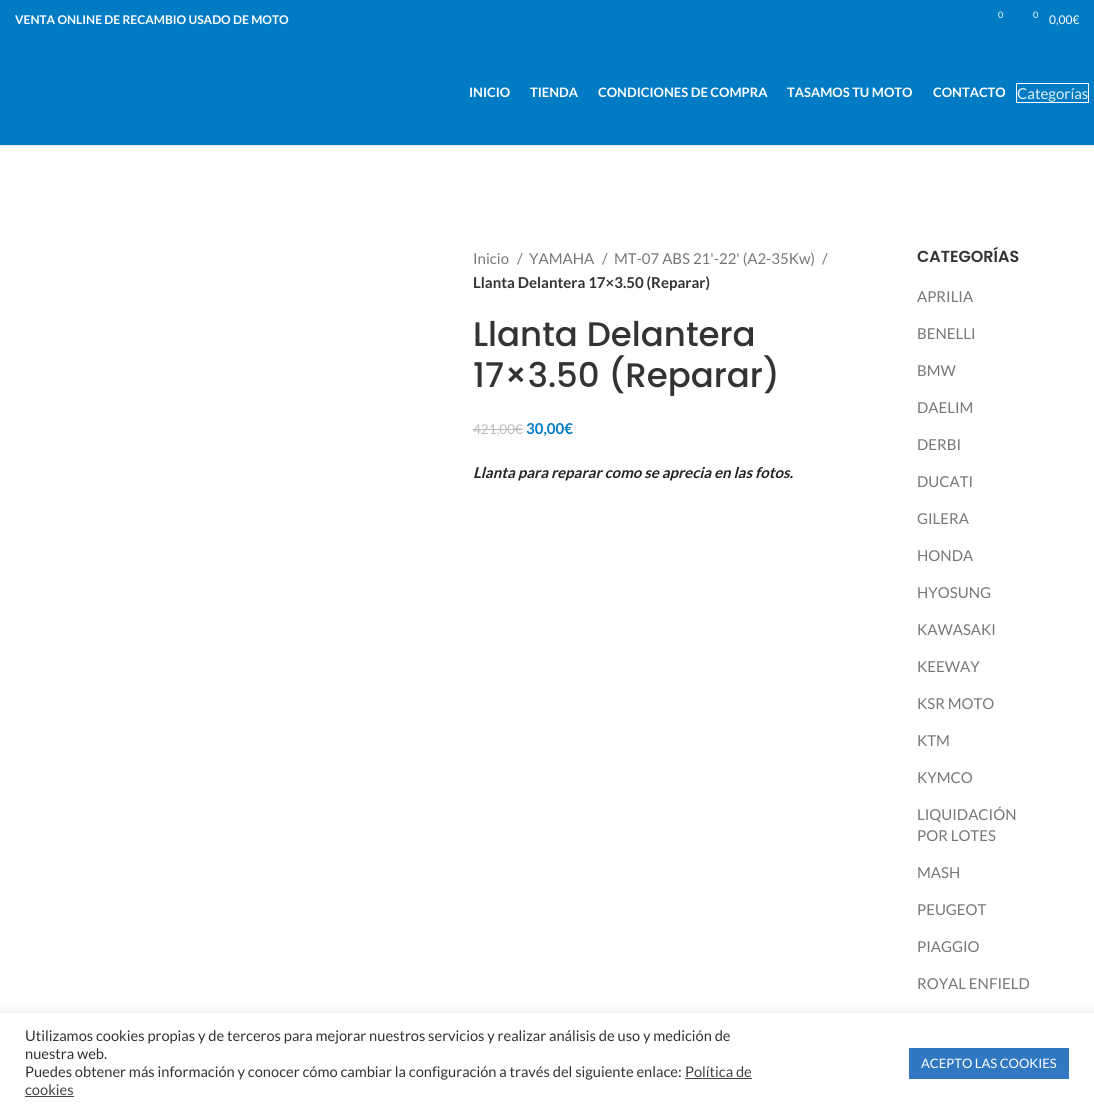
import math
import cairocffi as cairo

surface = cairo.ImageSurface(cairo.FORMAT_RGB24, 1094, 1113)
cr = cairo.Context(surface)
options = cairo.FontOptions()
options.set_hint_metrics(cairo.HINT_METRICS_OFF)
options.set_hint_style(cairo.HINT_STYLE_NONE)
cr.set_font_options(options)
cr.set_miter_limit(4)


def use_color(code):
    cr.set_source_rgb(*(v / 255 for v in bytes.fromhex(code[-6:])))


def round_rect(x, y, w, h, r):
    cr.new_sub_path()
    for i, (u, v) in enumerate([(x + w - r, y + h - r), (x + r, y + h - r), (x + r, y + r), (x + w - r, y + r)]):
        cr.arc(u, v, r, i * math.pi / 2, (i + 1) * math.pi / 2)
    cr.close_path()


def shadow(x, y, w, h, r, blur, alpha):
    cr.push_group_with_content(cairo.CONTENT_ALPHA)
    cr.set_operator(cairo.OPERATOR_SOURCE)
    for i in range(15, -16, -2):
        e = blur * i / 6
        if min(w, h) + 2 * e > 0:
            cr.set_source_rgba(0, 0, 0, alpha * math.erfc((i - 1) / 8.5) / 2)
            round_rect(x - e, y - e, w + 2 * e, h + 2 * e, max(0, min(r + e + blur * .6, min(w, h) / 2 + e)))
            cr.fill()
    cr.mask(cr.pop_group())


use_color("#ffffff")
cr.paint()
use_color("#007bc4")
cr.rectangle(0, 0, 1094, 145)
cr.fill()
cr.select_font_face("Lato", cairo.FONT_SLANT_NORMAL, cairo.FONT_WEIGHT_BOLD)
cr.set_font_size(12)
use_color("#ffffff")
cr.move_to(15, 24)
cr.show_text("VENTA ONLINE DE RECAMBIO USADO DE MOTO")
cr.select_font_face("Lato")
cr.set_font_size(9)
cr.move_to(998, 18)
cr.show_text("0")
cr.move_to(1033, 18)
cr.show_text("0")
cr.set_font_size(12)
cr.move_to(1049, 24)
cr.show_text("0,00€")
use_color("#e8e8e8")
cr.rectangle(0, 145, 1094, 1)
cr.fill()
cr.select_font_face("Lato", cairo.FONT_SLANT_NORMAL, cairo.FONT_WEIGHT_BOLD)
cr.set_font_size(13)
use_color("#ffffff")
cr.move_to(469, 97)
cr.show_text("INICIO")
cr.move_to(530, 97)
cr.show_text("TIENDA")
cr.move_to(598, 97)
cr.show_text("CONDICIONES DE COMPRA")
cr.move_to(787, 97)
cr.show_text("TASAMOS TU MOTO")
cr.move_to(933, 97)
cr.show_text("CONTACTO")
cr.select_font_face("Lato")
cr.set_font_size(15)
use_color("#e6f2f9")
cr.move_to(1017, 99)
cr.show_text("Categorías")
use_color("#ffffff")
cr.rectangle(1016, 83, 1, 20)
cr.fill()
cr.rectangle(1017, 83, 72, 1)
cr.fill()
cr.rectangle(1088, 83, 1, 20)
cr.fill()
cr.rectangle(1017, 102, 72, 1)
cr.fill()
use_color("#777777")
cr.move_to(473, 264)
cr.show_text("Inicio")
cr.move_to(517, 264)
cr.show_text("/")
cr.move_to(529, 264)
cr.show_text("YAMAHA")
cr.move_to(602, 264)
cr.show_text("/")
cr.move_to(614, 264)
cr.show_text("MT-07 ABS 21'-22' (A2-35Kw)")
cr.move_to(822, 264)
cr.show_text("/")
cr.select_font_face("Lato", cairo.FONT_SLANT_NORMAL, cairo.FONT_WEIGHT_BOLD)
use_color("#333333")
cr.move_to(473, 288)
cr.show_text("Llanta Delantera 17×3.50 (Reparar)")
cr.select_font_face("Poppins Medium")
cr.set_font_size(34)
cr.move_to(473, 346)
cr.show_text("Llanta Delantera")
cr.move_to(473, 387)
cr.show_text("17×3.50 (Reparar)")
cr.select_font_face("Lato")
cr.set_font_size(13.5)
use_color("#bbbbbb")
cr.move_to(473, 434)
cr.show_text("421,00€")
cr.rectangle(473, 429, 50, 1)
cr.fill()
cr.select_font_face("Lato", cairo.FONT_SLANT_NORMAL, cairo.FONT_WEIGHT_BOLD)
cr.set_font_size(15)
use_color("#007bc4")
cr.move_to(526, 434)
cr.show_text("30,00€")
cr.select_font_face("Lato", cairo.FONT_SLANT_ITALIC, cairo.FONT_WEIGHT_BOLD)
use_color("#242424")
cr.move_to(473, 478)
cr.show_text("Llanta para reparar como se aprecia en las fotos.")
cr.select_font_face("Poppins SemiBold")
cr.set_font_size(16)
use_color("#333333")
cr.move_to(917, 262)
cr.show_text("CATEGORÍAS")
cr.select_font_face("Lato")
cr.set_font_size(15)
use_color("#777777")
cr.move_to(917, 302)
cr.show_text("APRILIA")
cr.move_to(917, 339)
cr.show_text("BENELLI")
cr.move_to(917, 376)
cr.show_text("BMW")
cr.move_to(917, 413)
cr.show_text("DAELIM")
cr.move_to(917, 450)
cr.show_text("DERBI")
cr.move_to(917, 487)
cr.show_text("DUCATI")
cr.move_to(917, 524)
cr.show_text("GILERA")
cr.move_to(917, 561)
cr.show_text("HONDA")
cr.move_to(917, 598)
cr.show_text("HYOSUNG")
cr.move_to(917, 635)
cr.show_text("KAWASAKI")
cr.move_to(917, 672)
cr.show_text("KEEWAY")
cr.move_to(917, 709)
cr.show_text("KSR MOTO")
cr.move_to(917, 746)
cr.show_text("KTM")
cr.move_to(917, 783)
cr.show_text("KYMCO")
cr.move_to(917, 820)
cr.show_text("LIQUIDACIÓN")
cr.move_to(917, 841)
cr.show_text("POR LOTES")
cr.move_to(917, 878)
cr.show_text("MASH")
cr.move_to(917, 915)
cr.show_text("PEUGEOT")
cr.move_to(917, 952)
cr.show_text("PIAGGIO")
cr.move_to(917, 989)
cr.show_text("ROYAL ENFIELD")
use_color("#acabab")
shadow(0, 1012, 1094, 100, 0, 5, 0.3)
use_color("#ffffff")
cr.rectangle(0, 1013, 1094, 100)
cr.fill()
cr.set_font_size(14.65)
use_color("#333333")
cr.move_to(25, 1041)
cr.show_text("Utilizamos cookies propias y de terceros para mejorar nuestros servicios y realizar análisis de uso y medición de")
cr.move_to(25, 1059)
cr.show_text("nuestra web.")
cr.move_to(25, 1077)
cr.show_text("Puedes obtener más información y conocer cómo cambiar la configuración a través del siguiente enlace:")
use_color("#444444")
cr.move_to(685, 1077)
cr.show_text("Política de")
cr.rectangle(685, 1078, 67, 1)
cr.fill()
cr.move_to(25, 1095)
cr.show_text("cookies")
cr.rectangle(25, 1096, 49, 1)
cr.fill()
use_color("#3078c2")
cr.rectangle(909, 1048, 160, 31)
cr.fill()
cr.set_font_size(13)
use_color("#ffffff")
cr.move_to(921, 1068)
cr.show_text("ACEPTO LAS COOKIES")
surface.write_to_png("result.png")
